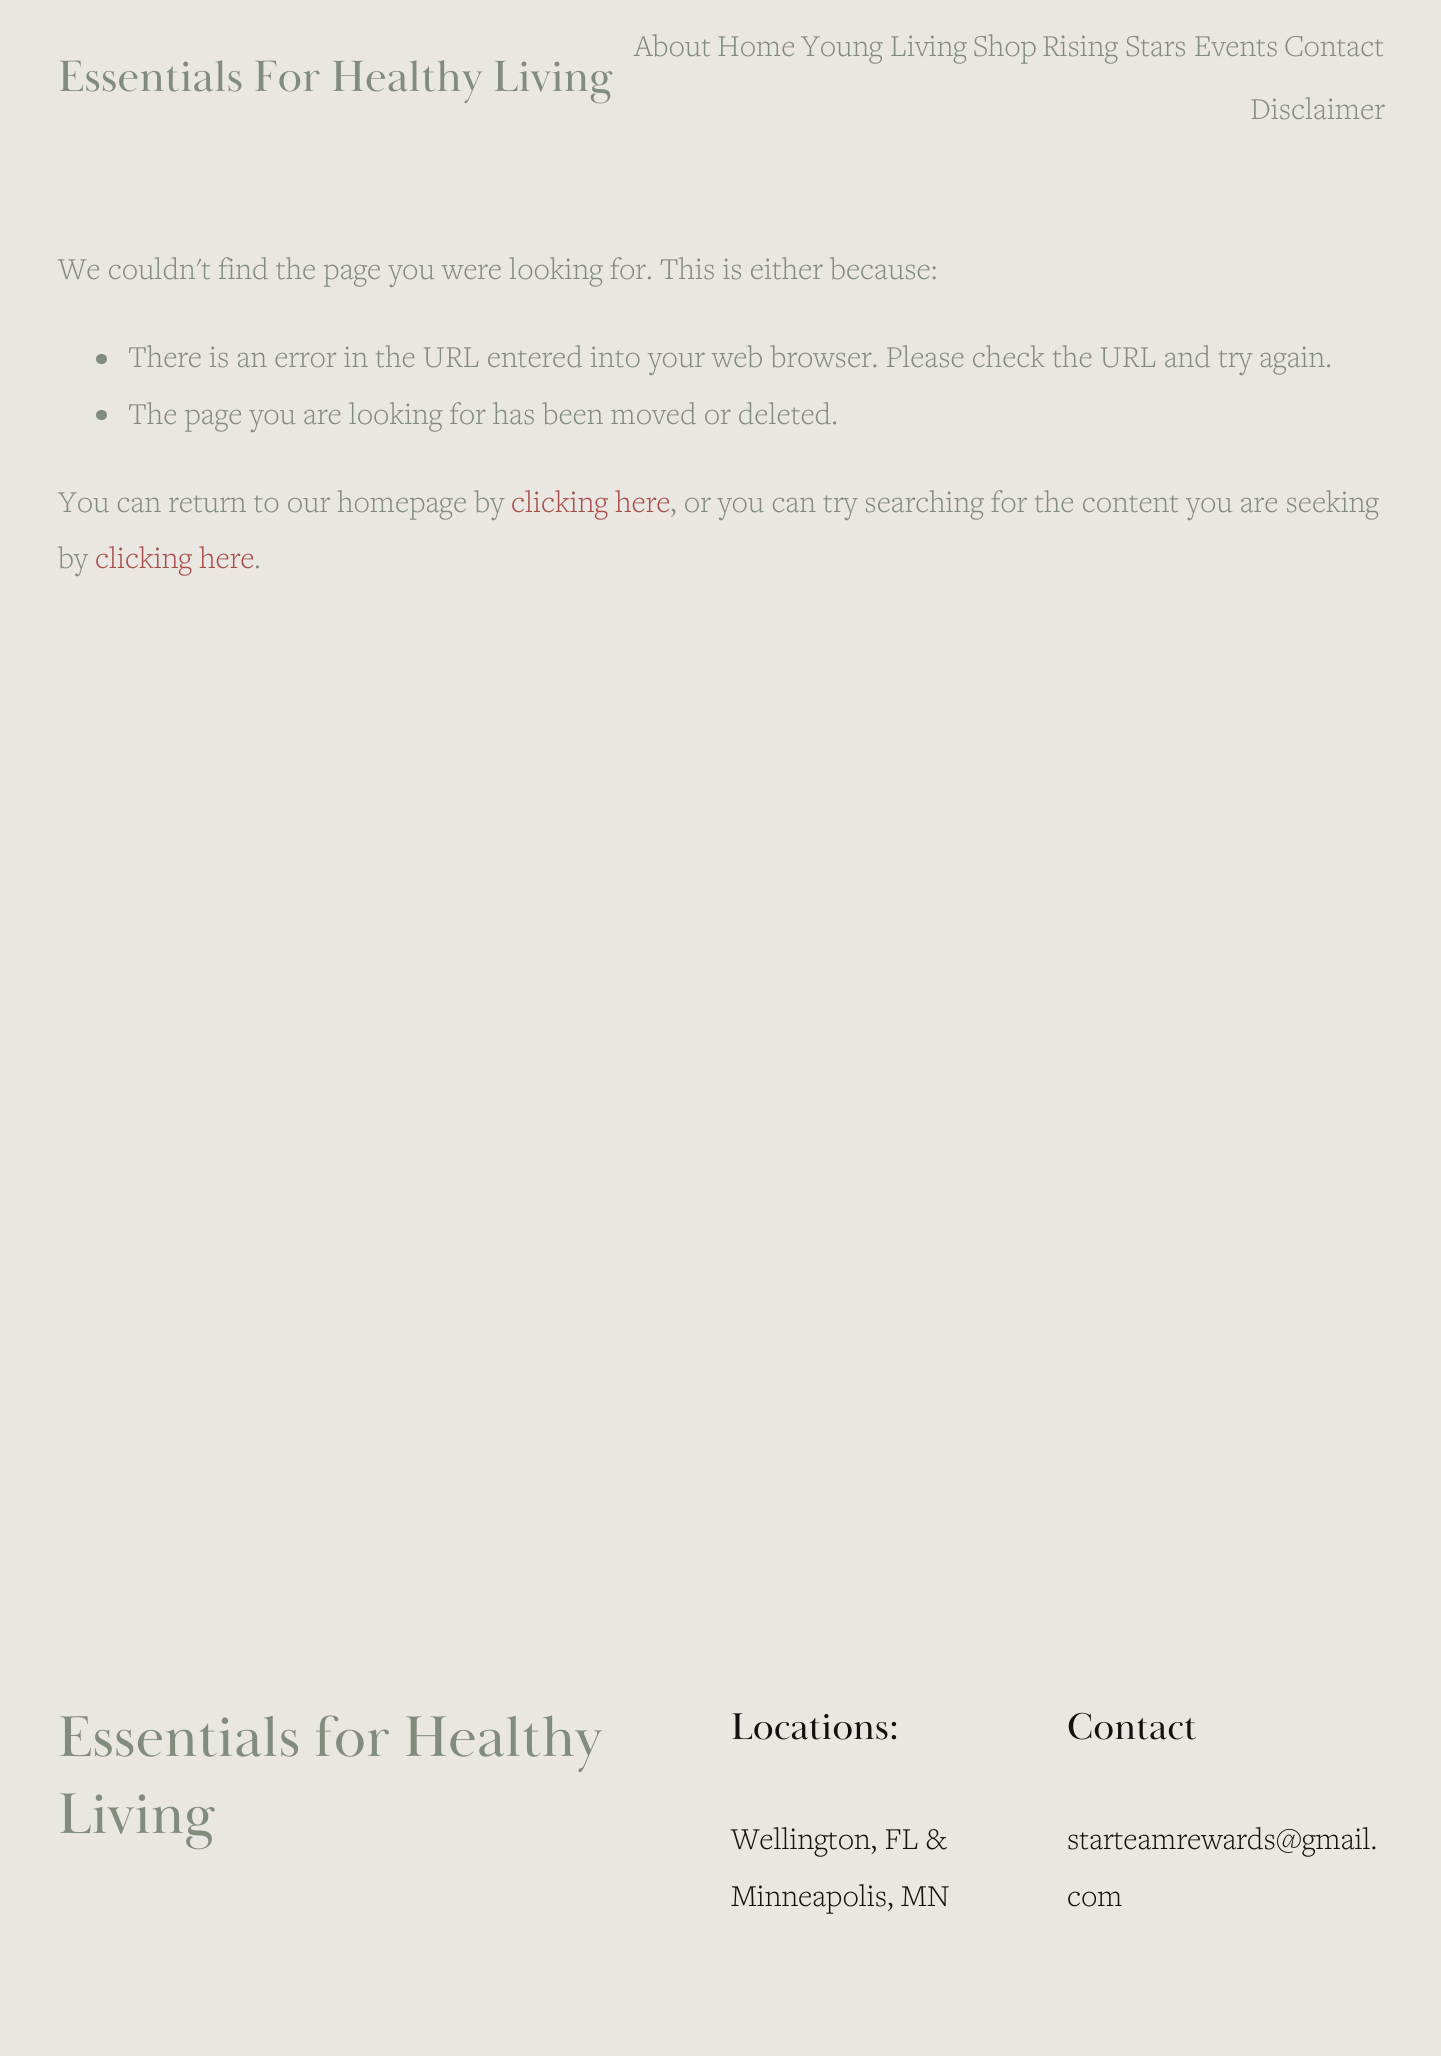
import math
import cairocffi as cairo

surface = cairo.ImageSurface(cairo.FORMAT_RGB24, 1441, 2056)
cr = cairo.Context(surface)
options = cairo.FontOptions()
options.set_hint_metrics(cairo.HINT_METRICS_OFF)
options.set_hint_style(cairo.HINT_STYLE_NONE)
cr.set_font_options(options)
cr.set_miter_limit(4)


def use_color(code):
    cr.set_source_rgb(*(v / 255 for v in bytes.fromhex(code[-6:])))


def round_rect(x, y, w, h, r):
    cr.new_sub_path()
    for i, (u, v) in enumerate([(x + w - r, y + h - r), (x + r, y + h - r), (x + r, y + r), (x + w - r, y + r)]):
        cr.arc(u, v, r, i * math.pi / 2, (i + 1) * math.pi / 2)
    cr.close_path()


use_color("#eae6e1")
cr.paint()
cr.select_font_face("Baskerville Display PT")
cr.set_font_size(45.25)
use_color("#818b7e")
cr.move_to(58, 91)
cr.show_text("Essentials For Healthy Living")
cr.select_font_face("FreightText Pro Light")
cr.set_font_size(31.45)
cr.move_to(634, 56)
cr.show_text("About")
cr.move_to(717, 56)
cr.show_text("Home")
cr.move_to(801, 56)
cr.show_text("Young Living")
cr.move_to(973, 56)
cr.show_text("Shop")
cr.move_to(1042, 56)
cr.show_text("Rising Stars Events")
cr.move_to(1284, 56)
cr.show_text("Contact")
cr.move_to(1250, 119)
cr.show_text("Disclaimer")
cr.move_to(58, 279)
cr.show_text("We couldn't find the page you were looking for. This is either because:")
round_rect(96, 354, 11, 10, 5)
cr.fill()
cr.move_to(128, 367)
cr.show_text("There is an error in the URL entered into your web browser. Please check the URL and try again.")
round_rect(96, 410, 11, 10, 5)
cr.fill()
cr.move_to(128, 424)
cr.show_text("The page you are looking for has been moved or deleted.")
cr.move_to(58, 512)
cr.show_text("You can return to our homepage by")
use_color("#a74d4a")
cr.move_to(511, 512)
cr.show_text("clicking here")
use_color("#818b7e")
cr.move_to(670, 512)
cr.show_text(", or you can try searching for the content you are seeking")
cr.move_to(58, 568)
cr.show_text("by")
use_color("#a74d4a")
cr.move_to(95, 568)
cr.show_text("clicking here")
use_color("#818b7e")
cr.move_to(254, 568)
cr.show_text(".")
cr.select_font_face("Baskerville Display PT")
cr.set_font_size(59.25)
cr.move_to(58, 1756)
cr.show_text("Essentials for Healthy")
cr.move_to(58, 1833)
cr.show_text("Living")
cr.set_font_size(38.5)
use_color("#121212")
cr.move_to(731, 1739)
cr.show_text("Locations:")
cr.select_font_face("FreightText Pro Light")
cr.set_font_size(31.45)
cr.move_to(731, 1849)
cr.show_text("Wellington, FL &")
cr.move_to(731, 1906)
cr.show_text("Minneapolis, MN")
cr.select_font_face("Baskerville Display PT")
cr.set_font_size(38.5)
cr.move_to(1067, 1739)
cr.show_text("Contact")
cr.select_font_face("FreightText Pro Light")
cr.set_font_size(31.45)
cr.move_to(1067, 1849)
cr.show_text("starteamrewards@gmail.")
cr.move_to(1067, 1906)
cr.show_text("com")
surface.write_to_png("result.png")
